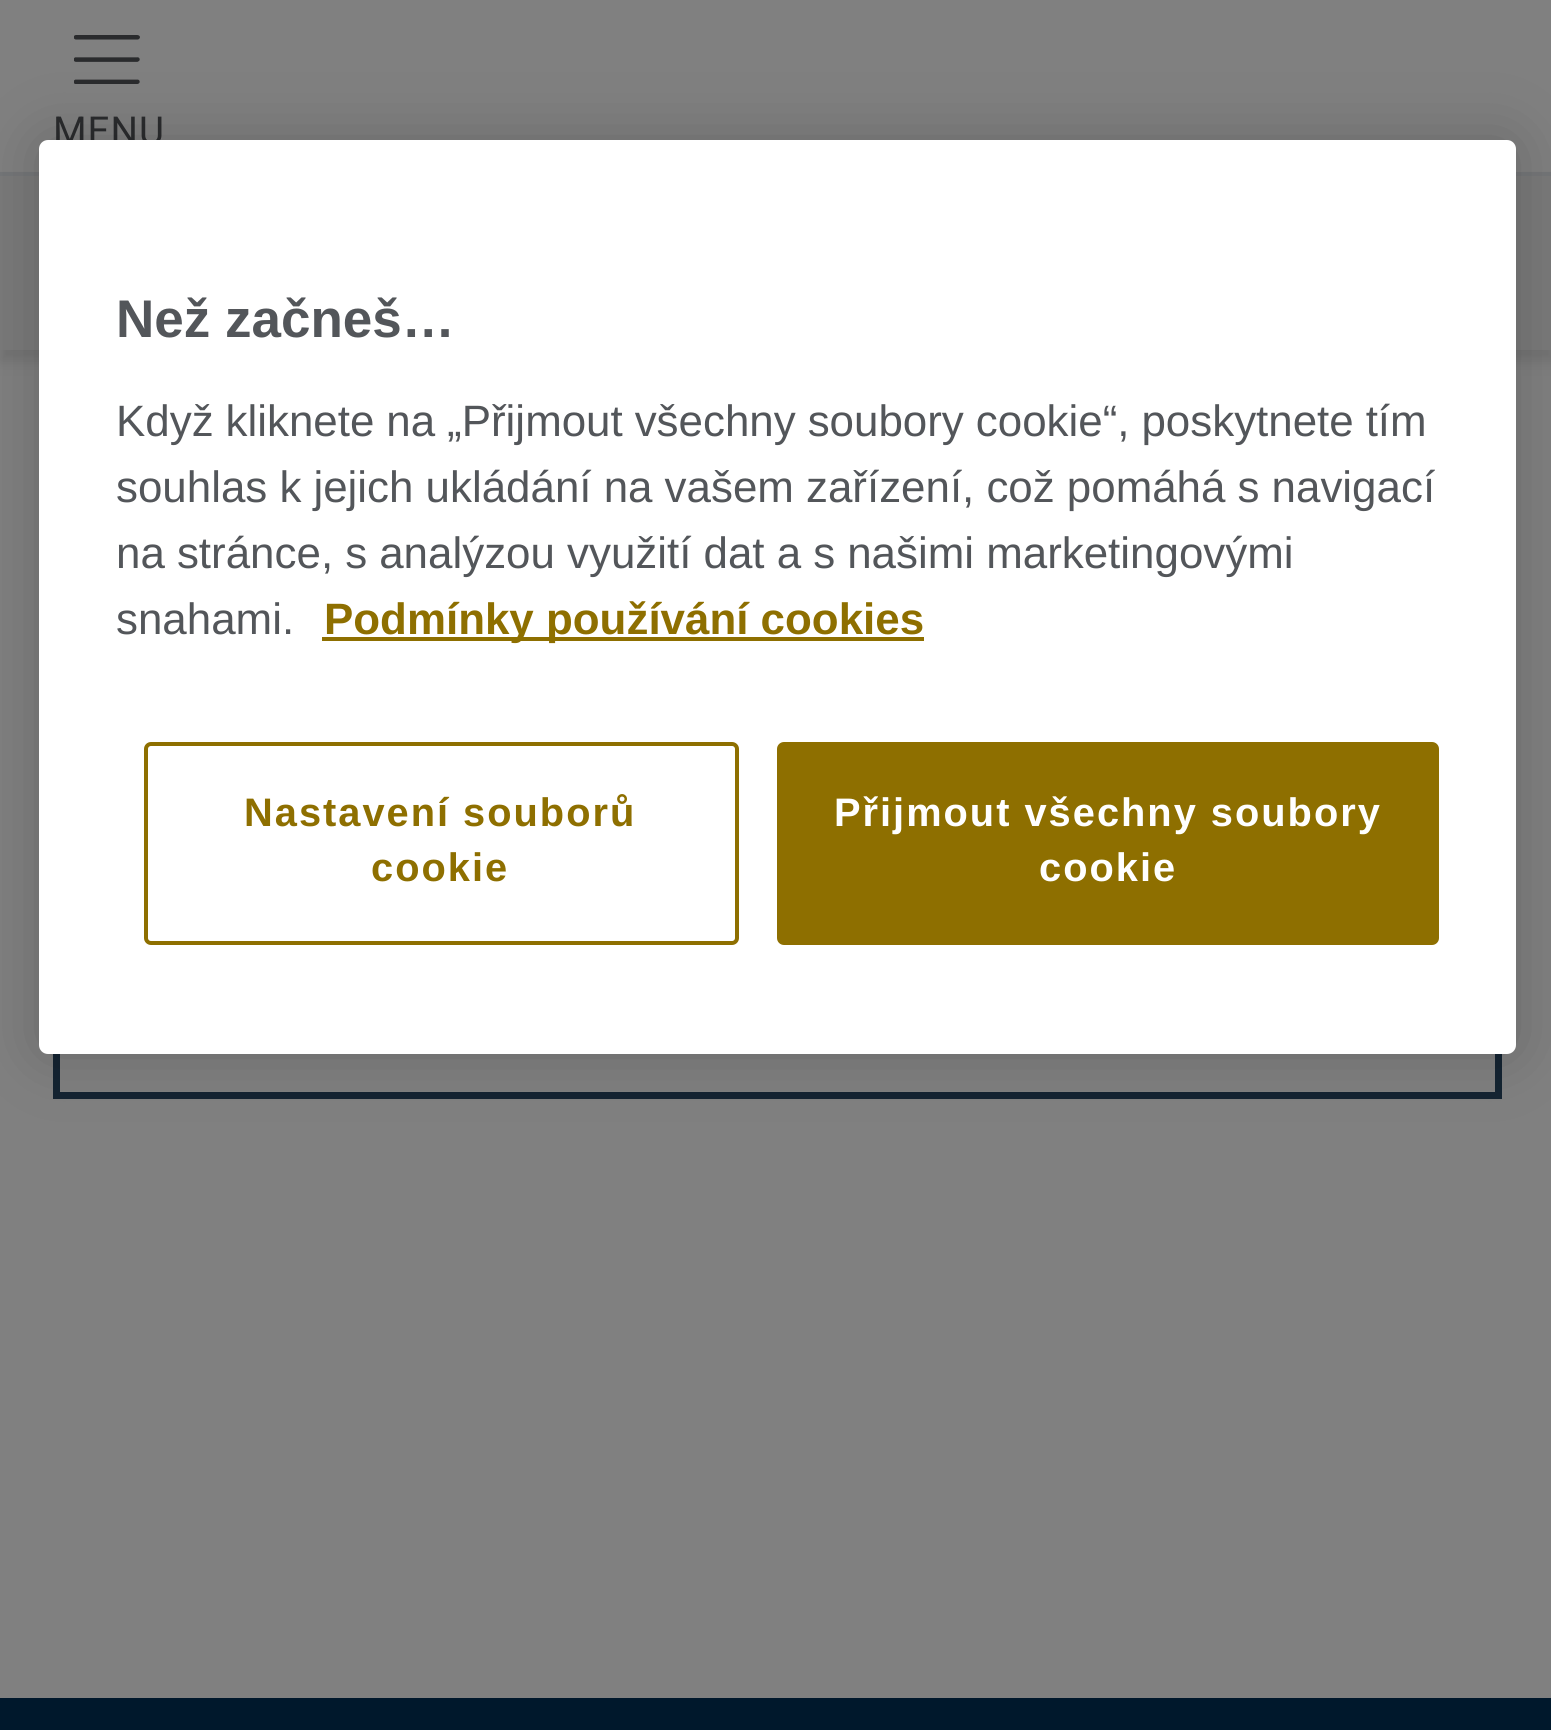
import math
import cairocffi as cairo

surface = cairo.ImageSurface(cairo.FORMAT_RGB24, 1551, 1730)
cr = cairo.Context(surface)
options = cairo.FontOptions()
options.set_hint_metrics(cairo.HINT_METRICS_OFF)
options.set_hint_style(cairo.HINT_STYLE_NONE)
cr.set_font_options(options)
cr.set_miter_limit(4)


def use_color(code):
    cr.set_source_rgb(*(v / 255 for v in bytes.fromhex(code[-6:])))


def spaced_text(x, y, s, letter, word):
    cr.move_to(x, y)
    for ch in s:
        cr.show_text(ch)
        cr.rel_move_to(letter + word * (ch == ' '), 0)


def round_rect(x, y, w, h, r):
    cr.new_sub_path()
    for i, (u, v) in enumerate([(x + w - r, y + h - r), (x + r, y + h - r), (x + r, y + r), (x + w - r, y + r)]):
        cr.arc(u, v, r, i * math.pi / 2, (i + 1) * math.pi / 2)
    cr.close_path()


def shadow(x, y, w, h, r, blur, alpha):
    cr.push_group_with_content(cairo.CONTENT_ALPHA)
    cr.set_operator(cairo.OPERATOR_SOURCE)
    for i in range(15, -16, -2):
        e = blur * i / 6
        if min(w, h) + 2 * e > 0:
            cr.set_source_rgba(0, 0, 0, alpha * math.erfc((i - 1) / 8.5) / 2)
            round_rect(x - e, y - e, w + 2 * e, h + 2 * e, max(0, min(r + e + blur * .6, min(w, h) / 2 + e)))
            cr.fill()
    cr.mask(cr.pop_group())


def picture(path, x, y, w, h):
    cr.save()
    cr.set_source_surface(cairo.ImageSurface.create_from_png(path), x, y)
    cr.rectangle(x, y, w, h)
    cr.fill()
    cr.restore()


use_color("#808080")
cr.paint()
use_color("#3e3e3e")
shadow(0, 186, 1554, 175, 0, 7, 0.2)
use_color("#747678")
cr.rectangle(0, 172, 1551, 4)
cr.fill()
picture("img1.png", 74, 35, 66, 49)
cr.select_font_face("Roboto")
cr.set_font_size(38.5)
use_color("#2a2b2d")
spaced_text(53, 144, "MENU", 1, 0)
use_color("#7a7a7a")
cr.rectangle(0, 176, 1551, 174)
cr.fill()
cr.rectangle(56.5, 913.5, 1442, 182)
use_color("#142432")
cr.set_line_width(7)
cr.stroke()
use_color("#00182c")
cr.rectangle(0, 1698, 1551, 32)
cr.fill()
use_color("#000000")
shadow(39, 140, 1477, 914, 9, 31.5, 0.2)
use_color("#ffffff")
round_rect(39, 140, 1477, 914, 9)
cr.fill()
cr.select_font_face("Liberation Sans", cairo.FONT_SLANT_NORMAL, cairo.FONT_WEIGHT_BOLD)
cr.set_font_size(53)
use_color("#53565a")
cr.move_to(116, 337)
cr.show_text("Než začneš…")
cr.select_font_face("Liberation Sans")
cr.set_font_size(43.9)
spaced_text(116, 436, "Když kliknete na „Přijmout všechny soubory cookie“, poskytnete tím", 0, -0.25)
spaced_text(116, 502, "souhlas k jejich ukládání na vašem zařízení, což pomáhá s navigací", 0, -0.1)
spaced_text(116, 568, "na stránce, s analýzou využití dat a s našimi marketingovými", 0, -0.1)
cr.move_to(116, 634)
cr.show_text("snahami.")
use_color("#8e6f00")
cr.rectangle(322, 637, 602, 4)
cr.fill()
cr.select_font_face("Liberation Sans", cairo.FONT_SLANT_NORMAL, cairo.FONT_WEIGHT_BOLD)
cr.move_to(324, 634)
cr.show_text("Podmínky používání cookies")
round_rect(146, 744, 591, 199, 5)
cr.set_line_width(4)
cr.stroke()
cr.set_font_size(39.8)
spaced_text(244, 826, "Nastavení souborů", 2, 0)
spaced_text(371, 881, "cookie", 2, 0)
round_rect(779, 744, 658, 199, 5)
cr.fill_preserve()
cr.stroke()
use_color("#ffffff")
spaced_text(834, 826, "Přijmout všechny soubory", 2, 0)
spaced_text(1039, 881, "cookie", 2, 0)
surface.write_to_png("result.png")
